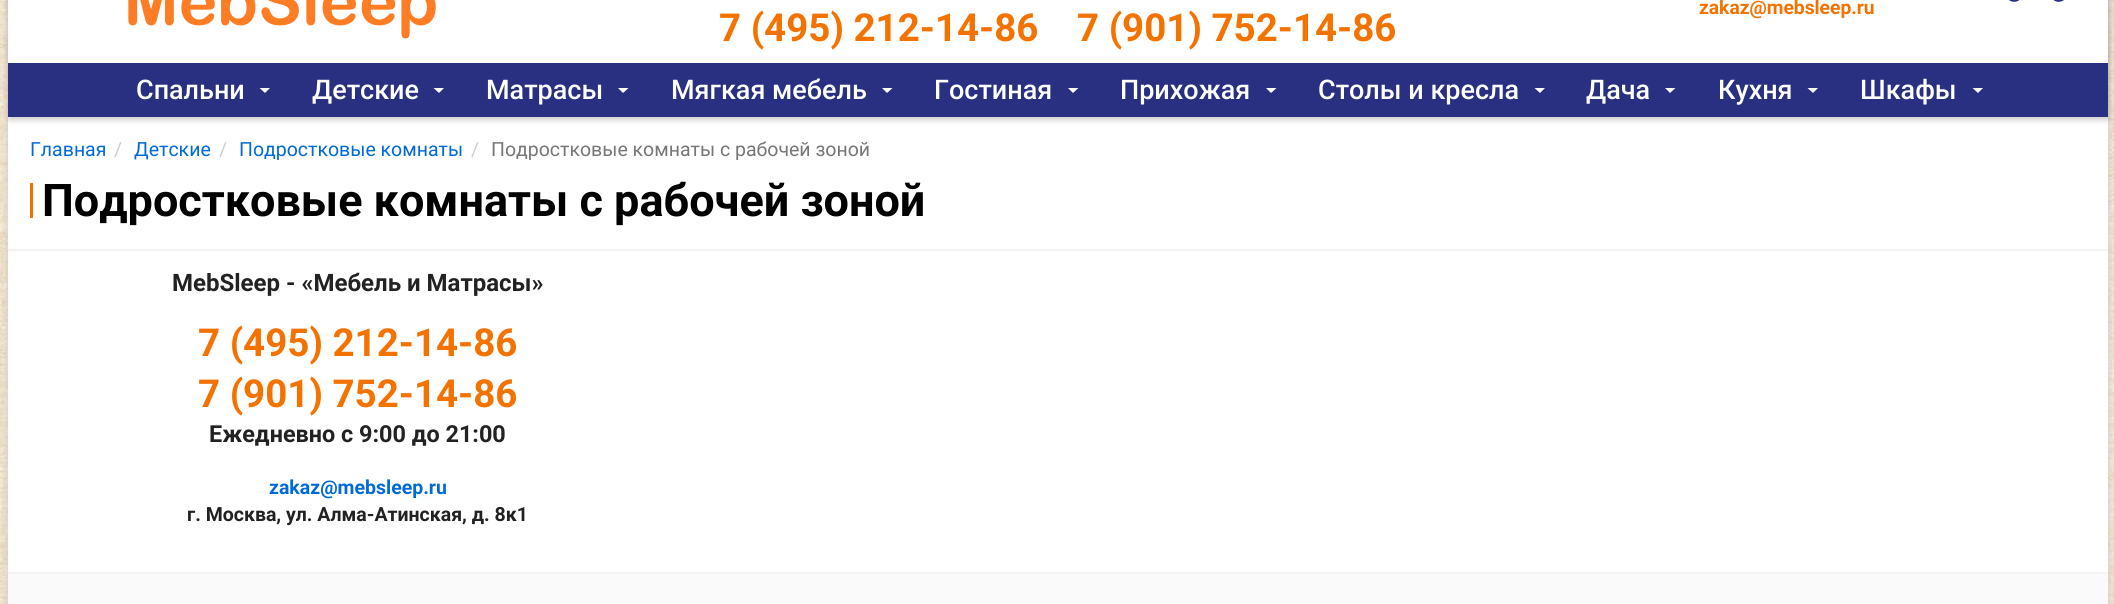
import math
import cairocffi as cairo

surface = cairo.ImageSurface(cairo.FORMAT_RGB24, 2114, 604)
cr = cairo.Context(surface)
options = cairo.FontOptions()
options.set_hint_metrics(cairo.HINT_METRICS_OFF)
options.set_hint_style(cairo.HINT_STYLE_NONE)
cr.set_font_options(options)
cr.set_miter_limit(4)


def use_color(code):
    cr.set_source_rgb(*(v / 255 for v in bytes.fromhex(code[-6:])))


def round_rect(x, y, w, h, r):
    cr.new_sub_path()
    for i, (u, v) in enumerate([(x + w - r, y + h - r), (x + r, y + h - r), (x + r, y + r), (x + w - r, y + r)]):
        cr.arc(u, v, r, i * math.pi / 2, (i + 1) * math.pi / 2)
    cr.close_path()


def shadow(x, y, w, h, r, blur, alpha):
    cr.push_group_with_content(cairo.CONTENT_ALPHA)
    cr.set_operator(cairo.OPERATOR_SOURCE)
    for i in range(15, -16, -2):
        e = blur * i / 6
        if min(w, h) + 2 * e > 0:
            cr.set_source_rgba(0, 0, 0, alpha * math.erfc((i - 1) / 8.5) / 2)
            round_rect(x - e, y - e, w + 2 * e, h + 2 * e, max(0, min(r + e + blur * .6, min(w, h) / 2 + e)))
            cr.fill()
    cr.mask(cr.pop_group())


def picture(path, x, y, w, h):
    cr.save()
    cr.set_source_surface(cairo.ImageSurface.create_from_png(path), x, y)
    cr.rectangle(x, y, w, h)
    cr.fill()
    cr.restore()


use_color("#ffffff")
cr.paint()
picture("img1.png", 0, 0, 2114, 604)
use_color("#cccccc")
shadow(8, -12, 2100, 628, 0, 4, 1)
use_color("#ffffff")
cr.rectangle(8, 117, 2100, 455)
cr.fill()
use_color("#000000")
shadow(9, -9, 2100, 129, 0, 3, 0.2)
use_color("#ffffff")
cr.rectangle(8, 0, 2100, 63)
cr.fill()
picture("img2.png", 128, 0, 308, 39)
cr.select_font_face("Roboto", cairo.FONT_SLANT_NORMAL, cairo.FONT_WEIGHT_BOLD)
cr.set_font_size(38.5)
use_color("#f47200")
cr.move_to(719, 41)
cr.show_text("7 (495) 212-14-86")
cr.move_to(1077, 41)
cr.show_text("7 (901) 752-14-86")
cr.set_font_size(19.25)
cr.move_to(1699, 14)
cr.show_text("zakaz@mebsleep.ru")
picture("img3.png", 2009, 0, 55, 2)
use_color("#2a3081")
cr.rectangle(8, 63, 2100, 54)
cr.fill()
cr.select_font_face("Roboto Medium")
cr.set_font_size(27)
use_color("#ffffff")
cr.move_to(136, 99)
cr.show_text("Спальни")
cr.new_path()
cr.move_to(259.5, 88)
cr.line_to(270, 88)
cr.line_to(265, 93)
cr.close_path()
cr.fill()
cr.move_to(312, 99)
cr.show_text("Детские")
cr.new_path()
cr.move_to(433.5, 88)
cr.line_to(444, 88)
cr.line_to(439, 93)
cr.close_path()
cr.fill()
cr.move_to(486, 99)
cr.show_text("Матрасы")
cr.new_path()
cr.move_to(618, 88)
cr.line_to(628.5, 88)
cr.line_to(623, 93)
cr.close_path()
cr.fill()
cr.move_to(671, 99)
cr.show_text("Мягкая мебель")
cr.new_path()
cr.move_to(882, 88)
cr.line_to(892.5, 88)
cr.line_to(887, 93)
cr.close_path()
cr.fill()
cr.move_to(934, 99)
cr.show_text("Гостиная")
cr.new_path()
cr.move_to(1068, 88)
cr.line_to(1078.5, 88)
cr.line_to(1073, 93)
cr.close_path()
cr.fill()
cr.move_to(1120, 99)
cr.show_text("Прихожая")
cr.new_path()
cr.move_to(1266, 88)
cr.line_to(1276.5, 88)
cr.line_to(1271, 93)
cr.close_path()
cr.fill()
cr.move_to(1318, 99)
cr.show_text("Cтолы и кресла")
cr.new_path()
cr.move_to(1534.5, 88)
cr.line_to(1545, 88)
cr.line_to(1540, 93)
cr.close_path()
cr.fill()
cr.move_to(1586, 99)
cr.show_text("Дача")
cr.new_path()
cr.move_to(1665, 88)
cr.line_to(1675.5, 88)
cr.line_to(1670, 93)
cr.close_path()
cr.fill()
cr.move_to(1718, 99)
cr.show_text("Кухня")
cr.new_path()
cr.move_to(1807.5, 88)
cr.line_to(1818, 88)
cr.line_to(1813, 93)
cr.close_path()
cr.fill()
cr.move_to(1860, 99)
cr.show_text("Шкафы")
cr.new_path()
cr.move_to(1972.5, 88)
cr.line_to(1983, 88)
cr.line_to(1978, 93)
cr.close_path()
cr.fill()
cr.select_font_face("Roboto")
cr.set_font_size(19.5)
use_color("#006bd8")
cr.move_to(30, 156)
cr.show_text("Главная")
use_color("#cccccc")
cr.move_to(114, 156)
cr.show_text("/")
use_color("#006bd8")
cr.move_to(134, 156)
cr.show_text("Детские")
use_color("#cccccc")
cr.move_to(219, 156)
cr.show_text("/")
use_color("#006bd8")
cr.move_to(239, 156)
cr.show_text("Подростковые комнаты")
use_color("#cccccc")
cr.move_to(471, 156)
cr.show_text("/")
use_color("#777777")
cr.move_to(491, 156)
cr.show_text("Подростковые комнаты с рабочей зоной")
use_color("#f47200")
cr.rectangle(30, 183, 3, 35)
cr.fill()
cr.select_font_face("Roboto", cairo.FONT_SLANT_NORMAL, cairo.FONT_WEIGHT_BOLD)
cr.set_font_size(45)
use_color("#000000")
cr.move_to(42, 216)
cr.show_text("Подростковые комнаты с рабочей зоной")
use_color("#f4f4f4")
cr.rectangle(8, 249, 2100, 2)
cr.fill()
cr.set_font_size(24)
use_color("#222222")
cr.move_to(172, 291)
cr.show_text("MebSleep - «Мебель и Матрасы»")
cr.set_font_size(38.5)
use_color("#f47200")
cr.move_to(198, 356)
cr.show_text("7 (495) 212-14-86")
cr.move_to(198, 407)
cr.show_text("7 (901) 752-14-86")
cr.set_font_size(23.4)
use_color("#222222")
cr.move_to(209, 442)
cr.show_text("Ежедневно с 9:00 до 21:00")
cr.set_font_size(19.5)
use_color("#006bd8")
cr.move_to(269, 494)
cr.show_text("zakaz@mebsleep.ru")
use_color("#222222")
cr.move_to(187, 521)
cr.show_text("г. Москва, ул. Алма-Атинская, д. 8к1")
use_color("#fafafa")
cr.rectangle(8, 574, 2100, 30)
cr.fill()
use_color("#f4f4f4")
cr.rectangle(8, 572, 2100, 2)
cr.fill()
surface.write_to_png("result.png")
